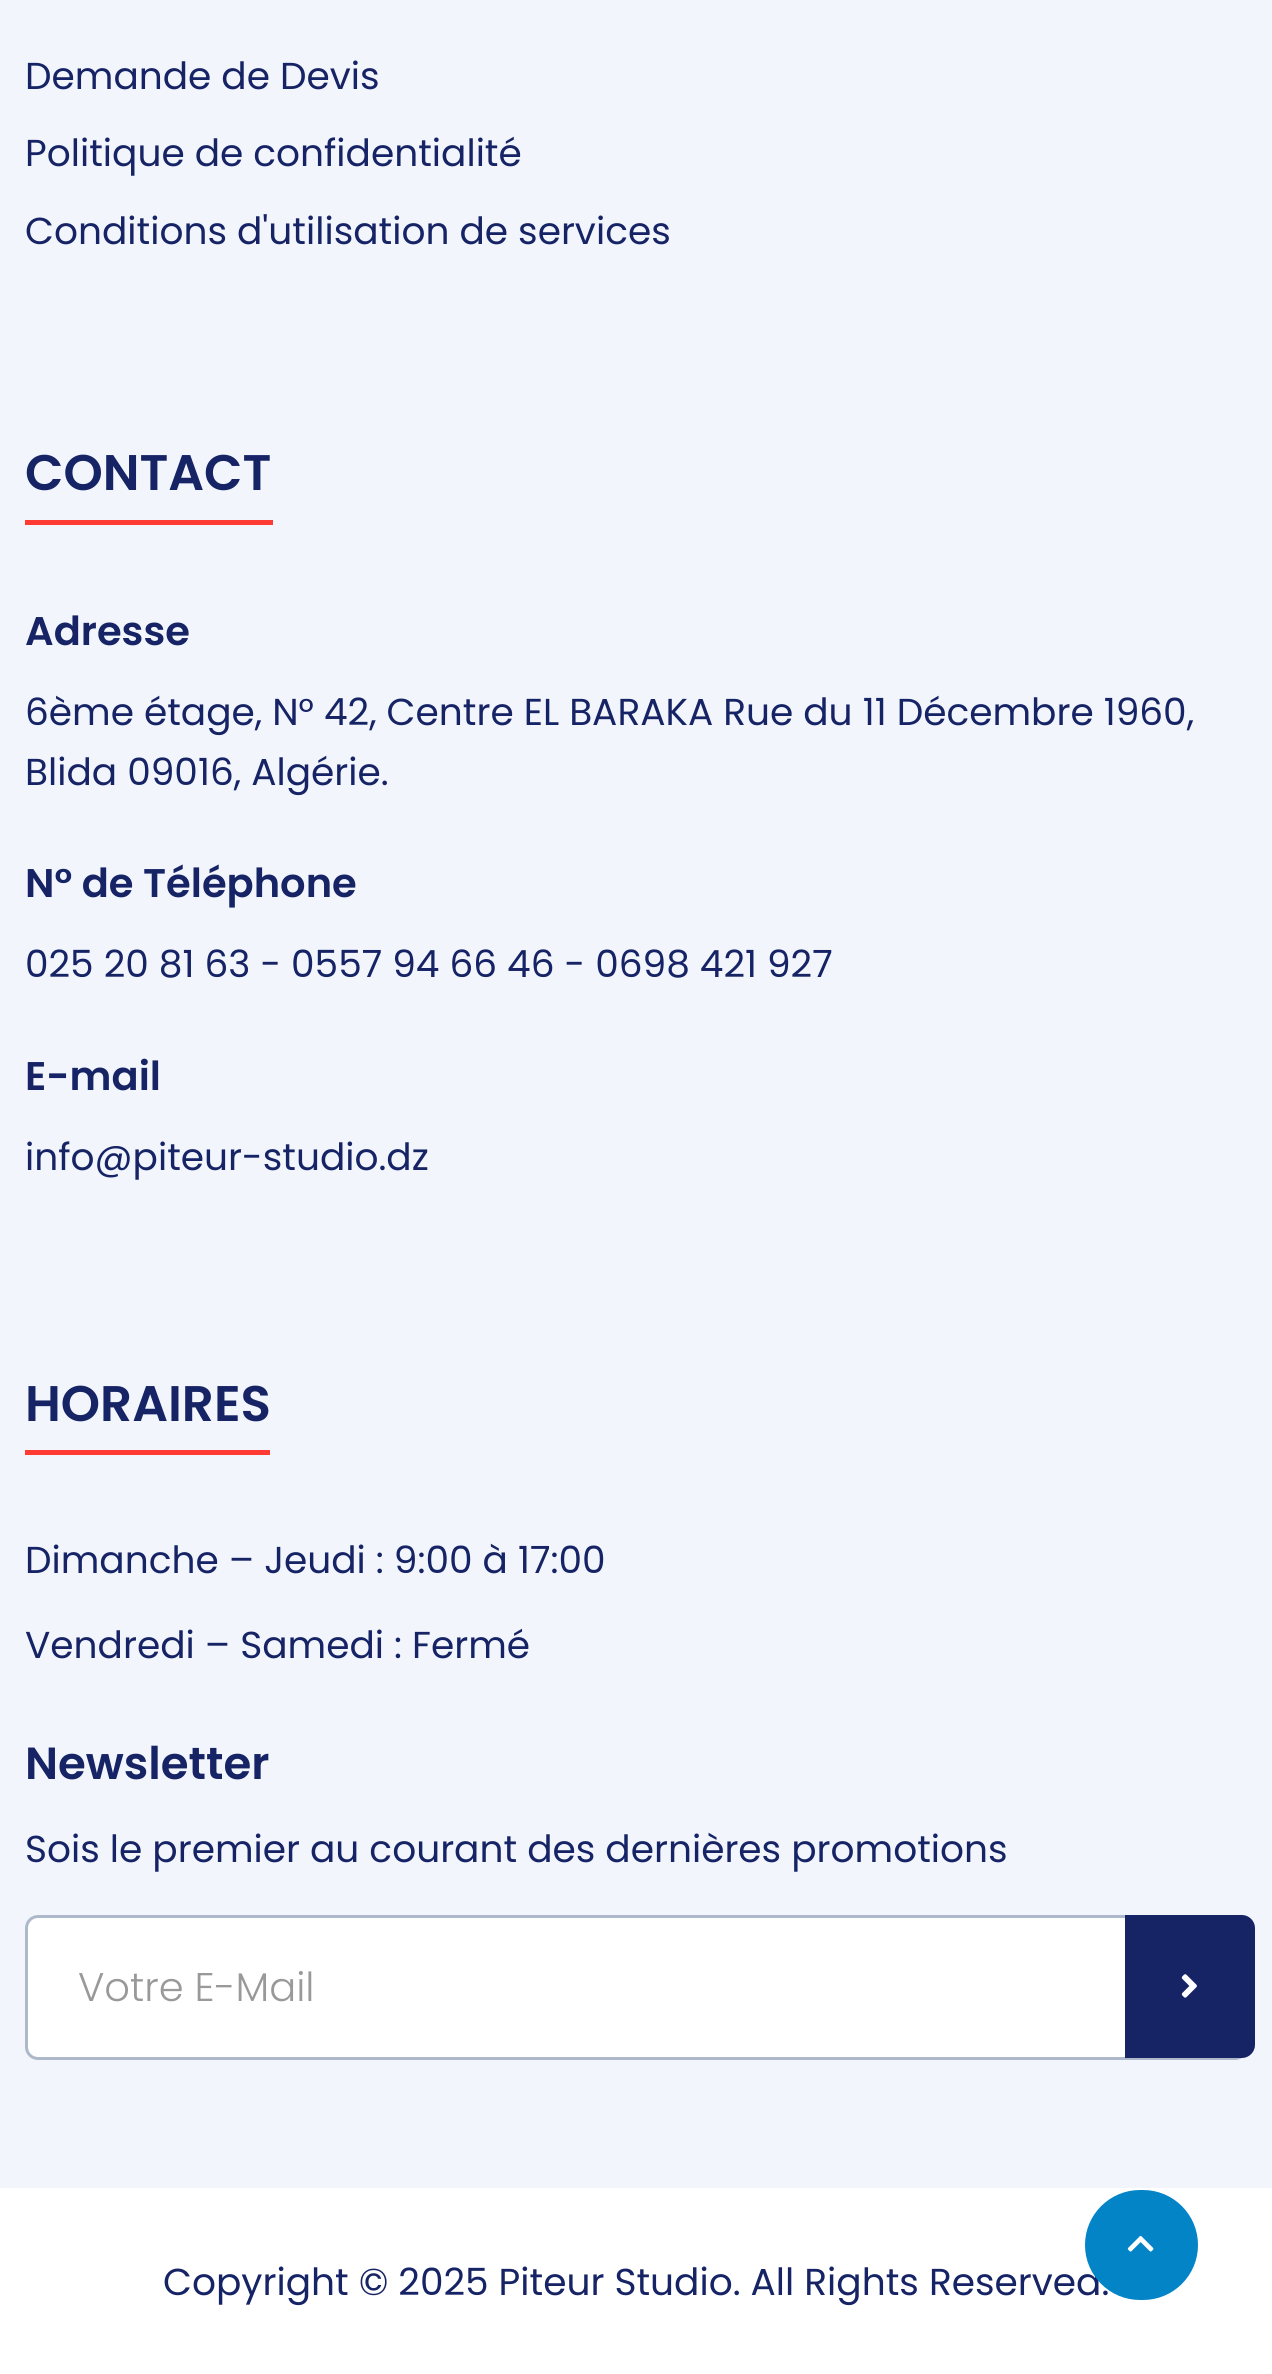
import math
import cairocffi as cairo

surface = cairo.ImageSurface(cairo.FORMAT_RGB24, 1272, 2374)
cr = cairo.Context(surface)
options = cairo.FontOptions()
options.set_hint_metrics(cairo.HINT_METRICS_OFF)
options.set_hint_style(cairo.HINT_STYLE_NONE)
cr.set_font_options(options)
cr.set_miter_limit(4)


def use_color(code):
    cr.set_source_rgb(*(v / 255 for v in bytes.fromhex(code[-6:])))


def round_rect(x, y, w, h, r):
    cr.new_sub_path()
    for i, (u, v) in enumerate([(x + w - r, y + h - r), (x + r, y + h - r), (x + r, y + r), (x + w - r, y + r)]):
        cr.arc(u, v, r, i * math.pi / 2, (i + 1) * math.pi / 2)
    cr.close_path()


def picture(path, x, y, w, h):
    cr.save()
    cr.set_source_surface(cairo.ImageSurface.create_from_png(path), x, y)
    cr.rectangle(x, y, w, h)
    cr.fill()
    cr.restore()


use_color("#ffffff")
cr.paint()
use_color("#f2f5fb")
cr.rectangle(0, 0, 1272, 2188)
cr.fill()
cr.select_font_face("Poppins")
cr.set_font_size(37.5)
use_color("#162466")
cr.move_to(25, 89)
cr.show_text("Demande de Devis")
cr.move_to(25, 166)
cr.show_text("Politique de confidentialité")
cr.move_to(25, 244)
cr.show_text("Conditions d'utilisation de services")
use_color("#ff3b33")
cr.rectangle(25, 520, 248, 5)
cr.fill()
cr.select_font_face("Poppins SemiBold")
cr.set_font_size(50)
use_color("#162466")
cr.move_to(25, 490)
cr.show_text("CONTACT")
cr.set_font_size(40)
cr.move_to(25, 645)
cr.show_text("Adresse")
cr.select_font_face("Poppins")
cr.set_font_size(37.5)
cr.move_to(25, 725)
cr.show_text("6ème étage, N° 42, Centre EL BARAKA Rue du 11 Décembre 1960,")
cr.move_to(25, 785)
cr.show_text("Blida 09016, Algérie.")
cr.select_font_face("Poppins SemiBold")
cr.set_font_size(40)
cr.move_to(25, 897)
cr.show_text("N° de Téléphone")
cr.select_font_face("Poppins")
cr.set_font_size(37.5)
cr.move_to(25, 977)
cr.show_text("025 20 81 63 - 0557 94 66 46 - 0698 421 927")
cr.select_font_face("Poppins SemiBold")
cr.set_font_size(40)
cr.move_to(25, 1090)
cr.show_text("E-mail")
cr.select_font_face("Poppins")
cr.set_font_size(37.5)
cr.move_to(25, 1170)
cr.show_text("info@piteur-studio.dz")
use_color("#ff3b33")
cr.rectangle(25, 1450, 245, 5)
cr.fill()
cr.select_font_face("Poppins SemiBold")
cr.set_font_size(50)
use_color("#162466")
cr.move_to(25, 1421)
cr.show_text("HORAIRES")
cr.select_font_face("Poppins")
cr.set_font_size(37.5)
cr.move_to(25, 1573)
cr.show_text("Dimanche – Jeudi : 9:00 à 17:00")
cr.move_to(25, 1658)
cr.show_text("Vendredi – Samedi : Fermé")
cr.select_font_face("Poppins SemiBold")
cr.set_font_size(45)
cr.move_to(25, 1779)
cr.show_text("Newsletter")
cr.select_font_face("Poppins")
cr.set_font_size(37.5)
cr.move_to(25, 1862)
cr.show_text("Sois le premier au courant des dernières promotions")
use_color("#ffffff")
round_rect(26.5, 1916.5, 1220, 142, 11.5)
cr.fill_preserve()
use_color("#adb9ca")
cr.set_line_width(3)
cr.stroke()
cr.select_font_face("Poppins Light")
cr.set_font_size(40)
use_color("#999999")
cr.move_to(78, 2001)
cr.show_text("Votre E-Mail")
use_color("#162466")
cr.new_path()
cr.move_to(1125, 1915)
cr.line_to(1242, 1915)
cr.curve_to(1249, 1915, 1255, 1921, 1255, 1928)
cr.line_to(1255, 2045)
cr.curve_to(1255, 2052, 1249, 2058, 1242, 2058)
cr.line_to(1125, 2058)
cr.close_path()
cr.fill()
picture("img1.png", 1181, 1974, 16, 24)
cr.select_font_face("Poppins")
cr.set_font_size(37.5)
cr.move_to(163, 2295)
cr.show_text("Copyright © 2025 Piteur Studio. All Rights Reserved.")
use_color("#0284c7")
round_rect(1085, 2190, 113, 110, 55)
cr.fill()
picture("img2.png", 1127, 2236, 27, 16)
surface.write_to_png("result.png")
